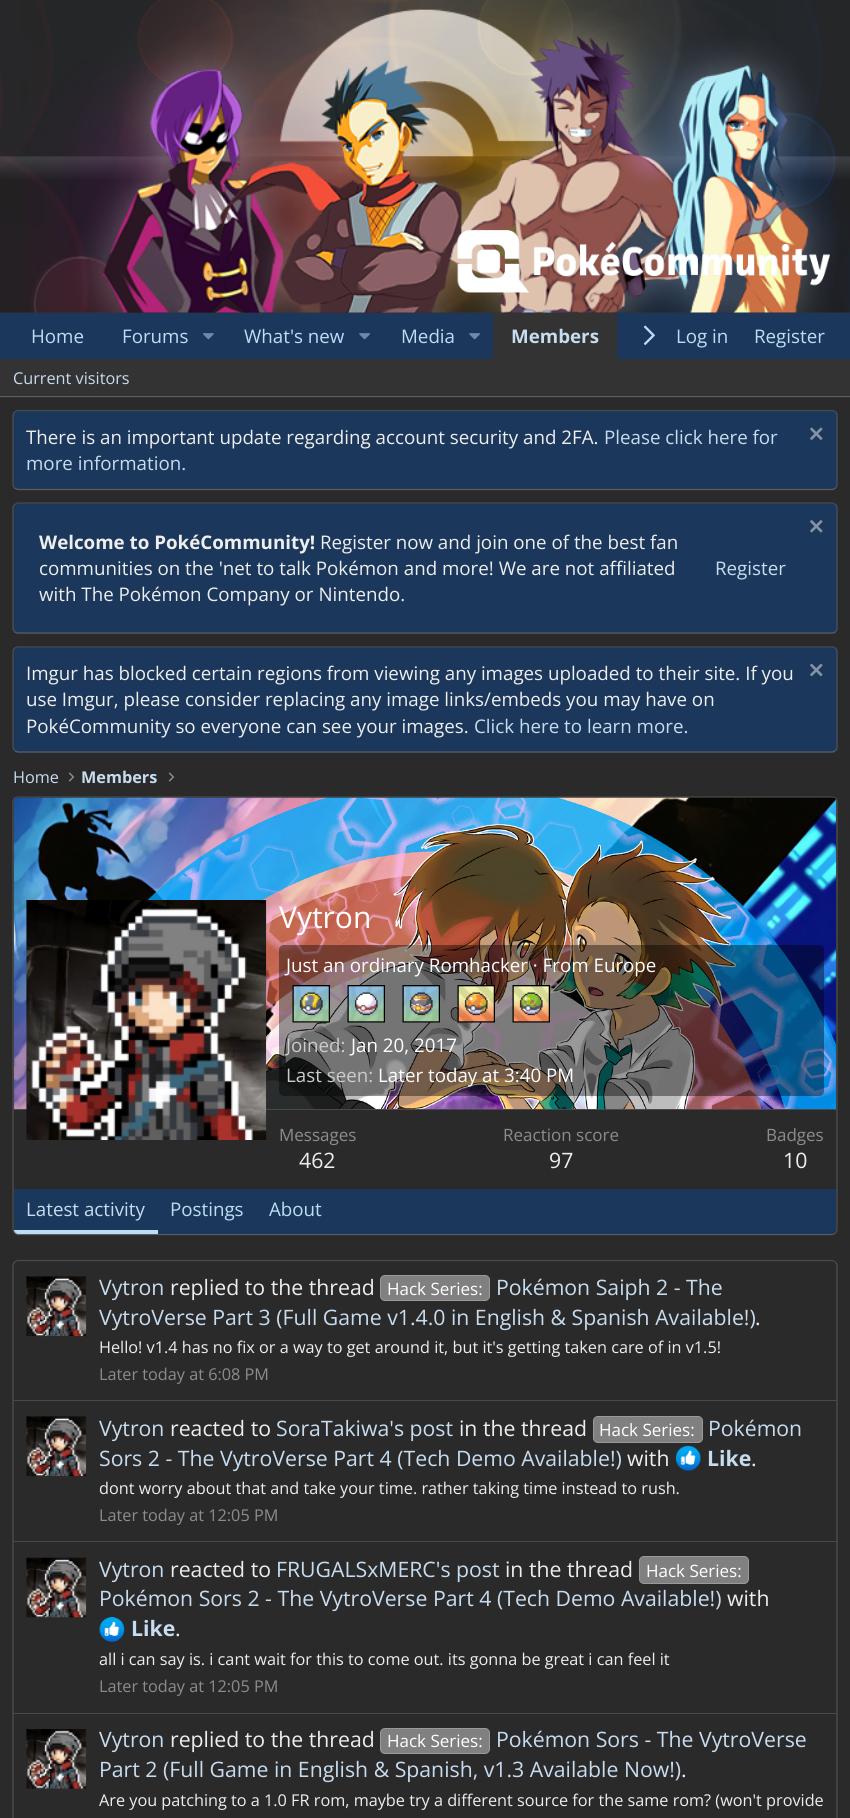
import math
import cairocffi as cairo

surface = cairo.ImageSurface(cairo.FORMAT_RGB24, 850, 1818)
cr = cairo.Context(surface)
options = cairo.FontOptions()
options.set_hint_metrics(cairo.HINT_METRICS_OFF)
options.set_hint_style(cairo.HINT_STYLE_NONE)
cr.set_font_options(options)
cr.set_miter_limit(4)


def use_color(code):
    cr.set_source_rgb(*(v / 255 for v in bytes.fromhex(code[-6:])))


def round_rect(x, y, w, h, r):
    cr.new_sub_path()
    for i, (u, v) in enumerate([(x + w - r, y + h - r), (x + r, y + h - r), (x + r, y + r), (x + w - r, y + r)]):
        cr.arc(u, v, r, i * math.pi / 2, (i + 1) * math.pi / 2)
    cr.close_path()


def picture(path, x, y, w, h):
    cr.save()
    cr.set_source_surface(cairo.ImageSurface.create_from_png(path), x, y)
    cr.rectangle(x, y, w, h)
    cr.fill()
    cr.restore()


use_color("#2a2a2a")
cr.paint()
picture("img1.png", 0, 0, 850, 313)
picture("img2.png", 457, 230, 373, 63)
use_color("#1b385c")
cr.rectangle(0, 313, 850, 46)
cr.fill()
cr.select_font_face("Open Sans")
cr.set_font_size(18.75)
use_color("#bcdef5")
cr.move_to(31, 343)
cr.show_text("Home")
cr.move_to(122, 343)
cr.show_text("Forums")
picture("img3.png", 203, 333, 11, 7)
cr.move_to(244, 343)
cr.show_text("What's new")
picture("img4.png", 359, 333, 11, 7)
cr.move_to(401, 343)
cr.show_text("Media")
picture("img4.png", 469, 333, 11, 7)
use_color("#333333")
cr.new_path()
cr.move_to(495.5, 313)
cr.line_to(615.5, 313)
cr.curve_to(617, 313, 618, 314, 618, 315.5)
cr.line_to(618, 359)
cr.line_to(493, 359)
cr.line_to(493, 315.5)
cr.curve_to(493, 314, 494, 313, 495.5, 313)
cr.close_path()
cr.fill()
cr.select_font_face("Open Sans", cairo.FONT_SLANT_NORMAL, cairo.FONT_WEIGHT_BOLD)
use_color("#c8dcf0")
cr.move_to(511, 343)
cr.show_text("Members")
gradient = cairo.LinearGradient(613, 336, 663, 336)
gradient.add_color_stop_rgba(0, 0.106, 0.22, 0.361, 0)
gradient.add_color_stop_rgba(0.33, 0.106, 0.22, 0.361, 1)
cr.set_source(gradient)
cr.rectangle(614, 313, 4, 46)
cr.fill()
picture("img5.png", 643, 325, 12, 20)
cr.select_font_face("Open Sans")
use_color("#bcdef5")
cr.move_to(676, 343)
cr.show_text("Log in")
cr.move_to(754, 343)
cr.show_text("Register")
use_color("#333333")
cr.rectangle(0, 359, 850, 39)
cr.fill()
use_color("#5d5d5d")
cr.rectangle(0, 396, 850, 1)
cr.fill()
cr.set_font_size(16.25)
use_color("#c8dcf0")
cr.move_to(13, 384)
cr.show_text("Current visitors")
use_color("#1b385c")
round_rect(13, 410, 825, 80, 5)
cr.fill()
cr.new_path()
cr.move_to(14.5, 412)
cr.line_to(17.5, 410.5)
cr.line_to(832.5, 410.5)
cr.line_to(835.5, 412)
use_color("#494949")
cr.set_line_width(1.2)
cr.stroke()
cr.new_path()
cr.move_to(835.5, 412)
cr.line_to(837, 414.5)
cr.line_to(837, 485.5)
cr.line_to(835.5, 488)
use_color("#505050")
cr.stroke()
cr.new_path()
cr.move_to(835.5, 488)
cr.line_to(832.5, 489.5)
cr.line_to(17.5, 489.5)
cr.line_to(14.5, 488)
use_color("#5d5d5d")
cr.stroke()
cr.new_path()
cr.move_to(14.5, 488)
cr.line_to(13, 485.5)
cr.line_to(13, 414.5)
cr.line_to(14.5, 412)
use_color("#505050")
cr.stroke()
cr.set_font_size(18.75)
use_color("#eeeeee")
cr.move_to(26, 444)
cr.show_text("There is an important update regarding account security and 2FA.")
use_color("#c8dcf0")
cr.move_to(604, 444)
cr.show_text("Please click here for")
picture("img6.png", 810, 427, 13, 13)
cr.move_to(26, 470)
cr.show_text("more information.")
use_color("#1b385c")
round_rect(13, 503, 825, 131, 5)
cr.fill()
cr.new_path()
cr.move_to(14.5, 504.5)
cr.line_to(17.5, 503)
cr.line_to(832.5, 503)
cr.line_to(835.5, 504.5)
use_color("#494949")
cr.stroke()
cr.new_path()
cr.move_to(835.5, 504.5)
cr.line_to(837, 507.5)
cr.line_to(837, 629)
cr.line_to(835.5, 632)
use_color("#505050")
cr.stroke()
cr.new_path()
cr.move_to(835.5, 632)
cr.line_to(832.5, 633)
cr.line_to(17.5, 633)
cr.line_to(14.5, 632)
use_color("#5d5d5d")
cr.stroke()
cr.new_path()
cr.move_to(14.5, 632)
cr.line_to(13, 629)
cr.line_to(13, 507)
cr.line_to(14.5, 504.5)
use_color("#505050")
cr.stroke()
picture("img7.png", 810, 520, 13, 13)
cr.select_font_face("Open Sans", cairo.FONT_SLANT_NORMAL, cairo.FONT_WEIGHT_BOLD)
use_color("#eeeeee")
cr.move_to(39, 549)
cr.show_text("Welcome to PokéCommunity!")
cr.select_font_face("Open Sans")
cr.move_to(320, 549)
cr.show_text("Register now and join one of the best fan")
cr.move_to(39, 575)
cr.show_text("communities on the 'net to talk Pokémon and more! We are not affiliated")
cr.move_to(39, 601)
cr.show_text("with The Pokémon Company or Nintendo.")
use_color("#c8dcf0")
cr.move_to(715, 575)
cr.show_text("Register")
use_color("#1b385c")
round_rect(13, 646, 825, 107, 5)
cr.fill()
cr.new_path()
cr.move_to(14.5, 648)
cr.line_to(17.5, 647)
cr.line_to(832.5, 647)
cr.line_to(835.5, 648)
use_color("#494949")
cr.stroke()
cr.new_path()
cr.move_to(835.5, 648)
cr.line_to(837, 651)
cr.line_to(837, 748)
cr.line_to(835.5, 750.5)
use_color("#505050")
cr.stroke()
cr.new_path()
cr.move_to(835.5, 750.5)
cr.line_to(832.5, 752)
cr.line_to(17.5, 752)
cr.line_to(14.5, 750.5)
use_color("#5d5d5d")
cr.stroke()
cr.new_path()
cr.move_to(14.5, 750.5)
cr.line_to(13, 748)
cr.line_to(13, 651)
cr.line_to(14.5, 648)
use_color("#505050")
cr.stroke()
use_color("#eeeeee")
cr.move_to(26, 680)
cr.show_text("Imgur has blocked certain regions from viewing any images uploaded to their site. If you")
picture("img8.png", 810, 663, 13, 14)
cr.move_to(26, 706)
cr.show_text("use Imgur, please consider replacing any image links/embeds you may have on")
cr.move_to(26, 733)
cr.show_text("PokéCommunity so everyone can see your images.")
use_color("#c8dcf0")
cr.move_to(474, 733)
cr.show_text("Click here to learn more.")
cr.set_font_size(16.25)
cr.move_to(13, 783)
cr.show_text("Home")
picture("img9.png", 68, 772, 7, 10)
cr.select_font_face("Open Sans", cairo.FONT_SLANT_NORMAL, cairo.FONT_WEIGHT_BOLD)
cr.move_to(81, 783)
cr.show_text("Members")
picture("img9.png", 168, 772, 7, 10)
cr.new_path()
cr.move_to(14.5, 798)
cr.line_to(17.5, 797)
cr.line_to(832.5, 797)
cr.line_to(835.5, 798)
use_color("#494949")
cr.stroke()
cr.new_path()
cr.move_to(835.5, 798)
cr.line_to(837, 801)
cr.line_to(837, 1230)
cr.line_to(835.5, 1233)
use_color("#505050")
cr.stroke()
cr.new_path()
cr.move_to(835.5, 1233)
cr.line_to(832.5, 1234.5)
cr.line_to(17.5, 1234.5)
cr.line_to(14.5, 1233)
use_color("#5d5d5d")
cr.stroke()
cr.new_path()
cr.move_to(14.5, 1233)
cr.line_to(13, 1230)
cr.line_to(13, 801)
cr.line_to(14.5, 798)
use_color("#505050")
cr.stroke()
picture("img10.png", 13, 797, 824, 313)
use_color("#494949")
cr.rectangle(14, 1109, 822, 1)
cr.fill()
picture("img11.png", 26, 900, 241, 240)
cr.select_font_face("Open Sans")
cr.set_font_size(30)
use_color("#ffffff")
cr.move_to(279, 928)
cr.show_text("Vytron")
cr.set_source_rgba(0, 0, 0, 0.4)
round_rect(279, 945, 545, 151, 5)
cr.fill()
cr.set_font_size(18.75)
use_color("#ffffff")
cr.move_to(286, 972)
cr.show_text("Just an ordinary Romhacker · From Europe")
picture("img12.png", 292, 985, 38, 38)
picture("img13.png", 347, 985, 38, 38)
picture("img14.png", 402, 985, 38, 38)
picture("img15.png", 457, 985, 38, 38)
picture("img16.png", 512, 985, 38, 38)
use_color("#cccccc")
cr.move_to(286, 1052)
cr.show_text("Joined:")
use_color("#ffffff")
cr.move_to(351, 1052)
cr.show_text("Jan 20, 2017")
use_color("#cccccc")
cr.move_to(286, 1082)
cr.show_text("Last seen:")
use_color("#ffffff")
cr.move_to(378, 1082)
cr.show_text("Later today at 3:40 PM")
cr.set_font_size(17)
use_color("#8c8c8c")
cr.move_to(279, 1141)
cr.show_text("Messages")
cr.set_font_size(21.25)
use_color("#eeeeee")
cr.move_to(299, 1168)
cr.show_text("462")
cr.set_font_size(17)
use_color("#8c8c8c")
cr.move_to(503, 1141)
cr.show_text("Reaction score")
cr.set_font_size(21.25)
use_color("#eeeeee")
cr.move_to(549, 1168)
cr.show_text("97")
cr.set_font_size(17)
use_color("#8c8c8c")
cr.move_to(766, 1141)
cr.show_text("Badges")
cr.set_font_size(21.25)
use_color("#eeeeee")
cr.move_to(783, 1168)
cr.show_text("10")
use_color("#1b385c")
cr.new_path()
cr.move_to(14, 1189)
cr.line_to(836, 1189)
cr.line_to(836, 1230)
cr.curve_to(836, 1232, 834, 1234, 832, 1234)
cr.line_to(18, 1234)
cr.curve_to(16, 1234, 14, 1232, 14, 1230)
cr.close_path()
cr.fill()
cr.set_source_rgba(0.106, 0.22, 0.361, 0.61)
cr.new_path()
cr.move_to(14, 1189)
cr.line_to(158, 1189)
cr.line_to(158, 1234)
cr.line_to(18, 1234)
cr.curve_to(16, 1234, 14, 1232, 14, 1230)
cr.close_path()
cr.fill()
use_color("#bcdef5")
cr.new_path()
cr.move_to(14, 1230)
cr.line_to(158, 1230)
cr.line_to(158, 1234)
cr.line_to(18, 1234)
cr.curve_to(16, 1234, 14, 1232, 14, 1230)
cr.close_path()
cr.fill()
cr.set_font_size(18.75)
use_color("#c8dcf0")
cr.move_to(26, 1216)
cr.show_text("Latest activity")
use_color("#bcdef5")
cr.move_to(170, 1216)
cr.show_text("Postings")
cr.move_to(269, 1216)
cr.show_text("About")
cr.new_path()
cr.move_to(14.5, 1262)
cr.line_to(17.5, 1260.5)
cr.line_to(832.5, 1260.5)
cr.line_to(835.5, 1262)
use_color("#494949")
cr.stroke()
cr.new_path()
cr.move_to(835.5, 1262)
cr.line_to(837, 1265)
cr.line_to(837, 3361)
cr.line_to(835.5, 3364.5)
use_color("#505050")
cr.stroke()
cr.new_path()
cr.move_to(14.5, 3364.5)
cr.line_to(13, 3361)
cr.line_to(13, 1265)
cr.line_to(14.5, 1262)
cr.stroke()
picture("img17.png", 26, 1276, 61, 61)
use_color("#808080")
round_rect(380.5, 1275.5, 109, 25, 4.5)
cr.fill_preserve()
use_color("#9a9a9a")
cr.set_line_width(1)
cr.stroke()
cr.set_font_size(17)
use_color("#ffffff")
cr.move_to(387, 1295)
cr.show_text("Hack Series:")
cr.set_font_size(21.25)
use_color("#c8dcf0")
cr.move_to(496, 1295)
cr.show_text("Pokémon Saiph 2 - The")
cr.move_to(99, 1325)
cr.show_text("VytroVerse Part 3 (Full Game v1.4.0 in English & Spanish Available!)")
cr.move_to(99, 1295)
cr.show_text("Vytron")
use_color("#eeeeee")
cr.move_to(170, 1295)
cr.show_text("replied to the thread")
cr.move_to(755, 1325)
cr.show_text(".")
cr.set_font_size(16.25)
cr.move_to(99, 1353)
cr.show_text("Hello! v1.4 has no fix or a way to get around it, but it's getting taken care of in v1.5!")
use_color("#8c8c8c")
cr.move_to(99, 1380)
cr.show_text("Later today at 6:08 PM")
use_color("#494949")
cr.rectangle(14, 1400, 822, 1)
cr.fill()
picture("img17.png", 26, 1416, 61, 61)
use_color("#808080")
round_rect(593.5, 1416.5, 109, 26, 4.5)
cr.fill_preserve()
use_color("#9a9a9a")
cr.stroke()
cr.set_font_size(17)
use_color("#ffffff")
cr.move_to(599, 1436)
cr.show_text("Hack Series:")
cr.set_font_size(21.25)
use_color("#c8dcf0")
cr.move_to(708, 1436)
cr.show_text("Pokémon")
cr.move_to(99, 1466)
cr.show_text("Sors 2 - The VytroVerse Part 4 (Tech Demo Available!)")
cr.move_to(99, 1436)
cr.show_text("Vytron")
use_color("#eeeeee")
cr.move_to(170, 1436)
cr.show_text("reacted to")
use_color("#c8dcf0")
cr.move_to(276, 1436)
cr.show_text("SoraTakiwa's post")
use_color("#eeeeee")
cr.move_to(459, 1436)
cr.show_text("in the thread")
cr.move_to(627, 1466)
cr.show_text("with")
picture("img18.png", 675, 1445, 26, 26)
cr.select_font_face("Open Sans", cairo.FONT_SLANT_NORMAL, cairo.FONT_WEIGHT_BOLD)
use_color("#c8dcf0")
cr.move_to(707, 1466)
cr.show_text("Like")
cr.select_font_face("Open Sans")
use_color("#eeeeee")
cr.move_to(751, 1466)
cr.show_text(".")
cr.set_font_size(16.25)
cr.move_to(99, 1494)
cr.show_text("dont worry about that and take your time. rather taking time instead to rush.")
use_color("#8c8c8c")
cr.move_to(99, 1521)
cr.show_text("Later today at 12:05 PM")
use_color("#494949")
cr.rectangle(14, 1541, 822, 1)
cr.fill()
picture("img19.png", 26, 1557, 61, 61)
cr.set_font_size(21.25)
use_color("#c8dcf0")
cr.move_to(99, 1577)
cr.show_text("Vytron")
use_color("#eeeeee")
cr.move_to(170, 1577)
cr.show_text("reacted to")
use_color("#c8dcf0")
cr.move_to(276, 1577)
cr.show_text("FRUGALSxMERC's post")
use_color("#eeeeee")
cr.move_to(505, 1577)
cr.show_text("in the thread")
use_color("#808080")
round_rect(639.5, 1556.5, 109, 27, 4.5)
cr.fill_preserve()
use_color("#9a9a9a")
cr.stroke()
cr.set_font_size(17)
use_color("#ffffff")
cr.move_to(646, 1577)
cr.show_text("Hack Series:")
cr.set_font_size(21.25)
use_color("#c8dcf0")
cr.move_to(99, 1606)
cr.show_text("Pokémon Sors 2 - The VytroVerse Part 4 (Tech Demo Available!)")
use_color("#eeeeee")
cr.move_to(727, 1606)
cr.show_text("with")
picture("img20.png", 99, 1617, 26, 25)
cr.select_font_face("Open Sans", cairo.FONT_SLANT_NORMAL, cairo.FONT_WEIGHT_BOLD)
use_color("#c8dcf0")
cr.move_to(131, 1636)
cr.show_text("Like")
cr.select_font_face("Open Sans")
use_color("#eeeeee")
cr.move_to(175, 1636)
cr.show_text(".")
cr.set_font_size(16.25)
cr.move_to(99, 1665)
cr.show_text("all i can say is. i cant wait for this to come out. its gonna be great i can feel it")
use_color("#8c8c8c")
cr.move_to(99, 1692)
cr.show_text("Later today at 12:05 PM")
use_color("#494949")
cr.rectangle(14, 1713, 822, 1)
cr.fill()
picture("img21.png", 26, 1729, 61, 60)
use_color("#808080")
round_rect(380.5, 1728.5, 109, 25, 4.5)
cr.fill_preserve()
use_color("#9a9a9a")
cr.stroke()
cr.set_font_size(17)
use_color("#ffffff")
cr.move_to(387, 1747)
cr.show_text("Hack Series:")
cr.set_font_size(21.25)
use_color("#c8dcf0")
cr.move_to(496, 1747)
cr.show_text("Pokémon Sors - The VytroVerse")
cr.move_to(99, 1777)
cr.show_text("Part 2 (Full Game in English & Spanish, v1.3 Available Now!)")
cr.move_to(99, 1747)
cr.show_text("Vytron")
use_color("#eeeeee")
cr.move_to(170, 1747)
cr.show_text("replied to the thread")
cr.move_to(681, 1777)
cr.show_text(".")
cr.set_font_size(16.25)
cr.move_to(99, 1806)
cr.show_text("Are you patching to a 1.0 FR rom, maybe try a different source for the same rom? (won't provide")
surface.write_to_png("result.png")
